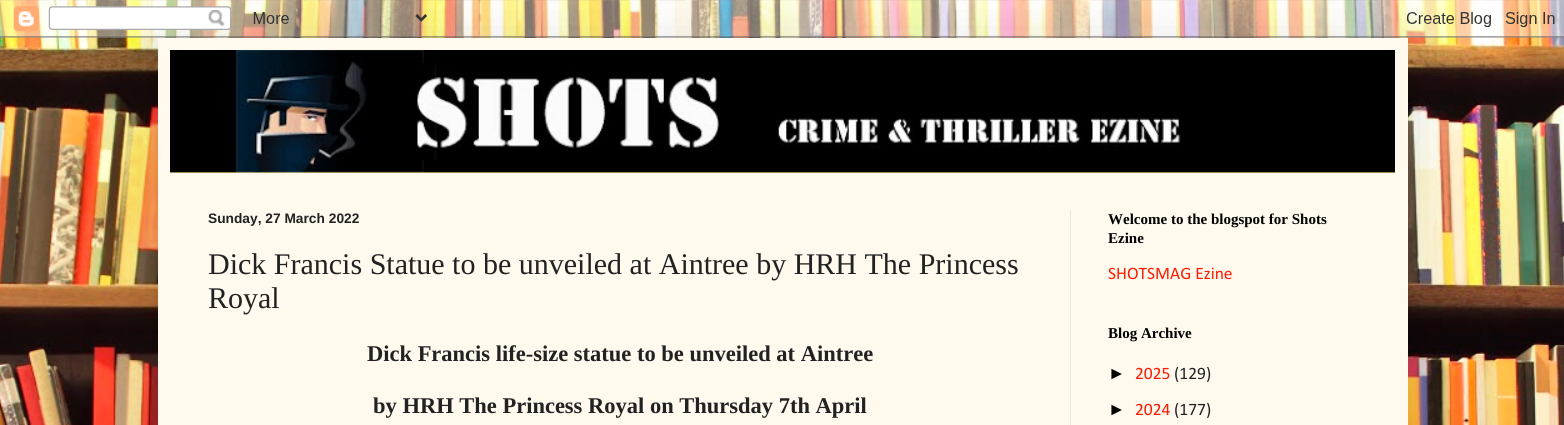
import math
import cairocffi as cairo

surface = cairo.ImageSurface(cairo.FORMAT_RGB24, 1564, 425)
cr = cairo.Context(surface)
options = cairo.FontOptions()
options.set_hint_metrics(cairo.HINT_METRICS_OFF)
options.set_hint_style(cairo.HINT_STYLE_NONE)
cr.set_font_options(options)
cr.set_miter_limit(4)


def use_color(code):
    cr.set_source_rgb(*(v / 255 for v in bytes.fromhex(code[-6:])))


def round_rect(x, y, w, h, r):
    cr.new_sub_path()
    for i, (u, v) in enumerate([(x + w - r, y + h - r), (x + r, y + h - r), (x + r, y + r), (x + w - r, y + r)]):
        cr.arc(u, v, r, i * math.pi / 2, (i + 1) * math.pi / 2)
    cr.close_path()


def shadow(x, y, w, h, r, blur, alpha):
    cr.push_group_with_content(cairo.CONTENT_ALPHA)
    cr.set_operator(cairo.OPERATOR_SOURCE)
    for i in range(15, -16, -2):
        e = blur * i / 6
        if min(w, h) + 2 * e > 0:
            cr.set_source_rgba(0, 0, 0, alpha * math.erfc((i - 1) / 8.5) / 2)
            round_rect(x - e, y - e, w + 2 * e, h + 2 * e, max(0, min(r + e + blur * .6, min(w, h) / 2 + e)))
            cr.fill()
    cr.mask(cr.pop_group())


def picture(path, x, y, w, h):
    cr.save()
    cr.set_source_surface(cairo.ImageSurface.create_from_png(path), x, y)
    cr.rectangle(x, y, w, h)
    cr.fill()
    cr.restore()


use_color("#ffffff")
cr.paint()
picture("img1.png", 0, 0, 1564, 425)
use_color("#000000")
shadow(158, 38, 1250, 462, 0, 25, 0.15)
picture("img2.png", 0, 0, 1564, 38)
use_color("#fff9ee")
cr.rectangle(158, 38, 1250, 387)
cr.fill()
use_color("#ccb666")
cr.rectangle(170, 172, 1225, 1)
cr.fill()
picture("img3.png", 170, 172, 1225, 1)
picture("img4.png", 170, 50, 1225, 123)
use_color("#eee5dd")
cr.rectangle(1070, 210, 1, 215)
cr.fill()
cr.select_font_face("Liberation Sans", cairo.FONT_SLANT_NORMAL, cairo.FONT_WEIGHT_BOLD)
cr.set_font_size(13.75)
use_color("#222222")
cr.move_to(208, 223)
cr.show_text("Sunday, 27 March 2022")
cr.select_font_face("Liberation Serif")
cr.set_font_size(30)
cr.move_to(208, 274)
cr.show_text("Dick Francis Statue to be unveiled at Aintree by HRH The Princess")
cr.move_to(208, 308)
cr.show_text("Royal")
cr.select_font_face("Liberation Serif", cairo.FONT_SLANT_NORMAL, cairo.FONT_WEIGHT_BOLD)
cr.set_font_size(22.5)
cr.move_to(367, 361)
cr.show_text("Dick Francis life-size statue to be unveiled at Aintree")
cr.move_to(373, 413)
cr.show_text("by HRH The Princess Royal on Thursday 7th April")
cr.set_font_size(15)
use_color("#000000")
cr.move_to(1108, 224)
cr.show_text("Welcome to the blogspot for Shots")
cr.move_to(1108, 243)
cr.show_text("Ezine")
cr.select_font_face("Calibri")
cr.set_font_size(17.5)
use_color("#ff1900")
cr.move_to(1108, 279)
cr.show_text("SHOTSMAG Ezine")
cr.select_font_face("Liberation Serif", cairo.FONT_SLANT_NORMAL, cairo.FONT_WEIGHT_BOLD)
cr.set_font_size(15)
use_color("#000000")
cr.move_to(1108, 338)
cr.show_text("Blog Archive")
cr.select_font_face("Liberation Sans")
cr.set_font_size(17.5)
cr.move_to(1108, 379)
cr.show_text("►")
cr.select_font_face("Calibri")
use_color("#ff1900")
cr.move_to(1135, 379)
cr.show_text("2025")
use_color("#222222")
cr.move_to(1174, 379)
cr.show_text("(129)")
cr.select_font_face("Liberation Sans")
use_color("#000000")
cr.move_to(1108, 415)
cr.show_text("►")
cr.select_font_face("Calibri")
use_color("#ff1900")
cr.move_to(1135, 415)
cr.show_text("2024")
use_color("#222222")
cr.move_to(1174, 415)
cr.show_text("(177)")
surface.write_to_png("result.png")
